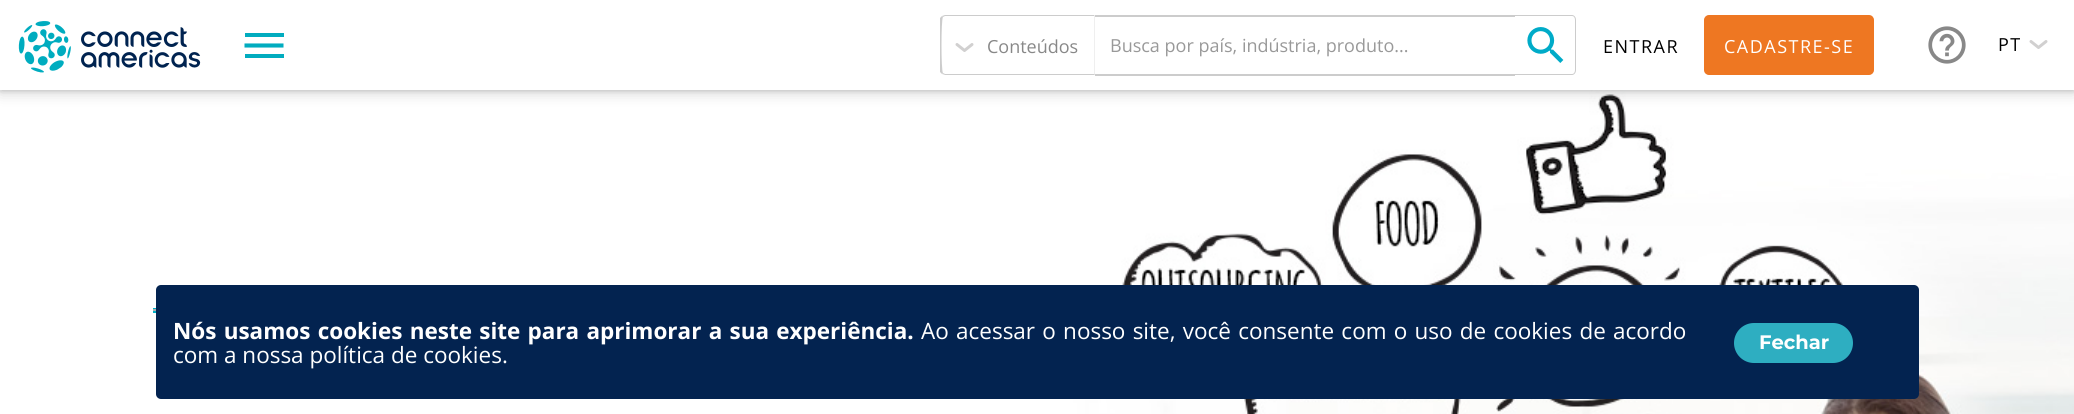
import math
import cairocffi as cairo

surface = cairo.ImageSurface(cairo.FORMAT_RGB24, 2074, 414)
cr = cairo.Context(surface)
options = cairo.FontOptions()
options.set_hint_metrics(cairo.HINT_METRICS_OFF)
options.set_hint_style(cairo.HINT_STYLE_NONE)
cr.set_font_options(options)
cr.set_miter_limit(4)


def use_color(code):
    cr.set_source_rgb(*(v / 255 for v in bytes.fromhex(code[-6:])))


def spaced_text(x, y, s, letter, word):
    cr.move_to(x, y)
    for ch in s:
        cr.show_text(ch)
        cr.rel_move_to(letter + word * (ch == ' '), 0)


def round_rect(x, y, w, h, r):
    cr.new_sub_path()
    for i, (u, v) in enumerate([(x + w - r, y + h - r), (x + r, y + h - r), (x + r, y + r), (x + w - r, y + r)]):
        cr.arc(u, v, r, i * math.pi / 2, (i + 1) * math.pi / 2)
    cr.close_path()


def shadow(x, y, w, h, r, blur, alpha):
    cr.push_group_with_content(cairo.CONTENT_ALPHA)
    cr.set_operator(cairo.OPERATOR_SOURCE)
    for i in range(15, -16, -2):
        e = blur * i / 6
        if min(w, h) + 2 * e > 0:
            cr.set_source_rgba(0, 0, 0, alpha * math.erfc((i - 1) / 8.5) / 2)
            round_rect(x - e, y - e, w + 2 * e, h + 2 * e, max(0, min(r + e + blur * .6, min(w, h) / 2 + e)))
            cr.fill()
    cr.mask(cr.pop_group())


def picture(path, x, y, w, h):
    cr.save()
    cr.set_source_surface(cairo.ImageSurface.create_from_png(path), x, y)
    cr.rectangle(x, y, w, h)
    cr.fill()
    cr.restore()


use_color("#ffffff")
cr.paint()
picture("img4.png", 0, 90, 2074, 324)
use_color("#000000")
shadow(0, 2, 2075, 90, 0, 1.5, 0.1)
shadow(0, 3, 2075, 90, 0, 7.5, 0.16)
use_color("#ffffff")
cr.rectangle(0, 0, 2074, 90)
cr.fill()
picture("img1.png", 18, 21, 183, 52)
use_color("#01acbf")
cr.rectangle(245, 33, 39, 4)
cr.fill()
cr.new_path()
cr.move_to(244.5, 45.5)
cr.line_to(283.5, 45.5)
cr.set_line_width(4.1)
cr.stroke()
cr.rectangle(245, 54, 39, 4)
cr.fill()
cr.new_path()
cr.move_to(957, 44.5)
cr.line_to(964.5, 50.5)
cr.line_to(972, 44.5)
use_color("#d1d0d0")
cr.set_line_width(3)
cr.set_line_cap(cairo.LINE_CAP_ROUND)
cr.set_line_join(cairo.LINE_JOIN_ROUND)
cr.stroke()
use_color("#cccccc")
cr.new_path()
cr.move_to(945, 15)
cr.line_to(942, 16)
cr.line_to(943, 17)
cr.line_to(945, 16)
cr.line_to(1094, 16)
cr.line_to(1095, 15)
cr.close_path()
cr.fill()
use_color("#efefef")
cr.new_path()
cr.move_to(1095, 15)
cr.line_to(1094, 16)
cr.line_to(1094, 74)
cr.line_to(1095, 75)
cr.close_path()
cr.fill()
use_color("#cccccc")
cr.new_path()
cr.move_to(1095, 75)
cr.line_to(1094, 74)
cr.line_to(945, 74)
cr.line_to(943, 73)
cr.line_to(942, 74)
cr.line_to(945, 75)
cr.close_path()
cr.fill()
cr.new_path()
cr.move_to(940, 18)
cr.line_to(942, 16)
cr.line_to(943, 17)
cr.curve_to(941, 19, 941, 71, 943, 73)
cr.line_to(942, 74)
cr.line_to(940, 72)
cr.close_path()
cr.fill()
cr.select_font_face("Open Sans")
cr.set_font_size(18)
use_color("#888888")
cr.move_to(987, 53)
cr.show_text("Conteúdos")
use_color("#cccccc")
cr.rectangle(1095, 15, 420, 2)
cr.fill()
cr.rectangle(1095, 74, 420, 2)
cr.fill()
use_color("#999999")
cr.move_to(1110, 52)
cr.show_text("Busca por país, indústria, produto...")
picture("img2.png", 1527, 27, 37, 36)
use_color("#cccccc")
cr.set_fill_rule(cairo.FILL_RULE_EVEN_ODD)
cr.new_path()
cr.move_to(1515, 15)
cr.line_to(1572, 15)
cr.curve_to(1574, 15, 1576, 17, 1576, 20)
cr.line_to(1576, 70)
cr.curve_to(1576, 73, 1574, 75, 1572, 75)
cr.line_to(1515, 75)
cr.close_path()
cr.move_to(1515, 16)
cr.line_to(1572, 16)
cr.curve_to(1574, 16, 1575, 18, 1575, 20)
cr.line_to(1575, 70)
cr.curve_to(1575, 72, 1574, 74, 1572, 74)
cr.line_to(1515, 74)
cr.close_path()
cr.fill()
use_color("#000000")
spaced_text(1603, 53, "ENTRAR", 1.5, 0)
use_color("#ee7722")
round_rect(1705, 16, 168, 58, 4)
cr.fill_preserve()
cr.set_line_width(2)
cr.set_line_cap(cairo.LINE_CAP_BUTT)
cr.set_line_join(cairo.LINE_JOIN_MITER)
cr.stroke()
use_color("#ffffff")
spaced_text(1724, 53, "CADASTRE-SE", 1.5, 0)
picture("img3.png", 1928, 26, 38, 38)
cr.new_path()
cr.move_to(2031, 41.5)
cr.line_to(2038.5, 47.5)
cr.line_to(2046, 41.5)
use_color("#d1d0d0")
cr.set_line_width(3)
cr.set_line_cap(cairo.LINE_CAP_ROUND)
cr.set_line_join(cairo.LINE_JOIN_ROUND)
cr.stroke()
use_color("#000000")
spaced_text(1998, 51, "PT", 1.5, 0)
use_color("#00aec5")
cr.rectangle(153, 308, 3, 5)
cr.fill()
use_color("#afafaf")
cr.rectangle(153, 309, 3, 2)
cr.fill()
use_color("#032350")
round_rect(156, 285, 1763, 114, 5)
cr.fill()
cr.select_font_face("Open Sans", cairo.FONT_SLANT_NORMAL, cairo.FONT_WEIGHT_BOLD)
cr.set_font_size(22.5)
use_color("#ffffff")
spaced_text(173, 339, "Nós usamos cookies neste site para aprimorar a sua experiência.", 0, 1.4)
cr.select_font_face("Open Sans")
spaced_text(921, 339, "Ao acessar o nosso site, você consente com o uso de cookies de acordo", 0, 1.4)
cr.move_to(173, 363)
cr.show_text("com a nossa política de cookies.")
use_color("#2eaec1")
round_rect(1734, 323, 119, 40, 20)
cr.fill()
cr.select_font_face("Montserrat", cairo.FONT_SLANT_NORMAL, cairo.FONT_WEIGHT_BOLD)
cr.set_font_size(19.5)
use_color("#ffffff")
cr.move_to(1759, 349)
cr.show_text("Fechar")
surface.write_to_png("result.png")
